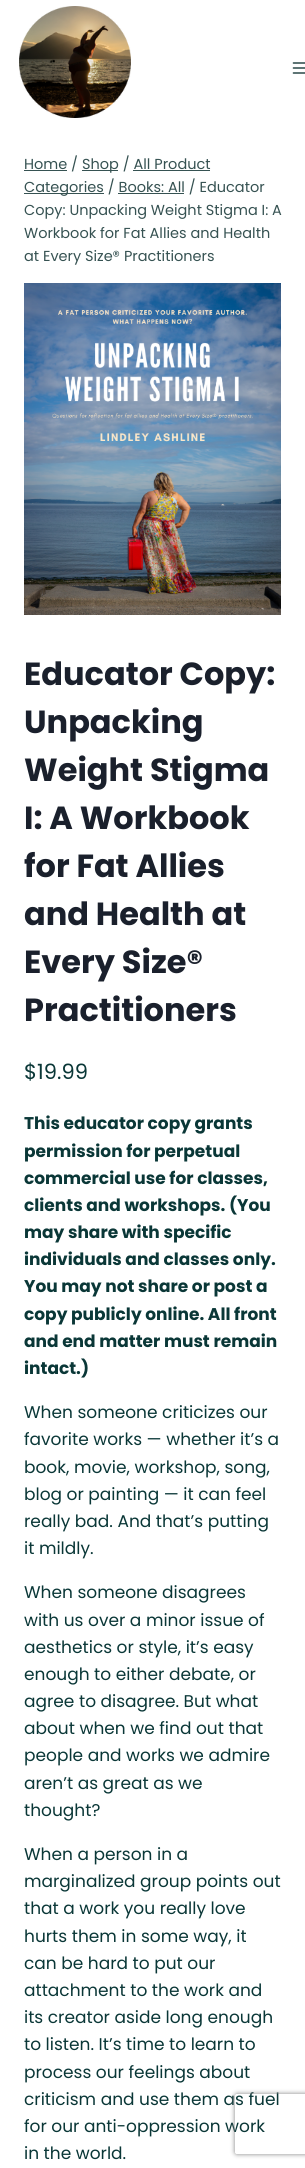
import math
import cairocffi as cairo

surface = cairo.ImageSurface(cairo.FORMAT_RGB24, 305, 2168)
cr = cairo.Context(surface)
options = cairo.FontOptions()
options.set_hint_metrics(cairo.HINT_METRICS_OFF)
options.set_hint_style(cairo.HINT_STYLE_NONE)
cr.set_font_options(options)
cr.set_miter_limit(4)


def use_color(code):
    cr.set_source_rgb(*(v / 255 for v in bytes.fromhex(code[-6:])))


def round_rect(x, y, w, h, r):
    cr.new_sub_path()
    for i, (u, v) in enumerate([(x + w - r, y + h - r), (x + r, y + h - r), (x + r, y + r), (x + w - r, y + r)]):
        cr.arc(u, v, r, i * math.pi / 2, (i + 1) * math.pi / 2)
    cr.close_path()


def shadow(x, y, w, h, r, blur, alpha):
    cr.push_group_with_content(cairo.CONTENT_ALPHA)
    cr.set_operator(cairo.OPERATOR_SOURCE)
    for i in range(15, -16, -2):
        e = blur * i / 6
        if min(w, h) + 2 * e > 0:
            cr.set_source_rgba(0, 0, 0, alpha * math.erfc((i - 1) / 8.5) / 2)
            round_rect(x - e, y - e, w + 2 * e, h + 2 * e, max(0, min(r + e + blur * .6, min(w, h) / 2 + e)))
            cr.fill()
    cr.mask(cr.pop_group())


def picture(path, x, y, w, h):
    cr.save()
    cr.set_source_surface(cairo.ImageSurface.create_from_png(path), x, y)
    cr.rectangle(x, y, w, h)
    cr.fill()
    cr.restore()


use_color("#ffffff")
cr.paint()
picture("img1.png", 19, 6, 112, 112)
picture("img2.png", 292, 62, 13, 12)
use_color("#365252")
cr.rectangle(24, 170, 43, 1)
cr.fill()
cr.select_font_face("Poppins")
cr.set_font_size(14.5)
cr.move_to(24, 169)
cr.show_text("Home /")
cr.rectangle(82, 170, 36, 1)
cr.fill()
cr.move_to(82, 169)
cr.show_text("Shop / All Product")
cr.rectangle(24, 193, 80, 1)
cr.fill()
cr.move_to(24, 192)
cr.show_text("Categories / Books: All / Educator")
cr.rectangle(133, 170, 77, 1)
cr.fill()
cr.rectangle(118, 193, 66, 1)
cr.fill()
cr.move_to(24, 215)
cr.show_text("Copy: Unpacking Weight Stigma I: A")
cr.move_to(24, 238)
cr.show_text("Workbook for Fat Allies and Health")
cr.move_to(24, 261)
cr.show_text("at Every Size® Practitioners")
picture("img3.png", 24, 283, 257, 332)
cr.select_font_face("Poppins", cairo.FONT_SLANT_NORMAL, cairo.FONT_WEIGHT_BOLD)
cr.set_font_size(32)
use_color("#1a202c")
cr.move_to(24, 685)
cr.show_text("Educator Copy:")
cr.move_to(24, 733)
cr.show_text("Unpacking")
cr.move_to(24, 781)
cr.show_text("Weight Stigma")
cr.move_to(24, 829)
cr.show_text("I: A Workbook")
cr.move_to(24, 877)
cr.show_text("for Fat Allies")
cr.move_to(24, 925)
cr.show_text("and Health at")
cr.move_to(24, 973)
cr.show_text("Every Size®")
cr.move_to(24, 1021)
cr.show_text("Practitioners")
cr.select_font_face("Poppins")
cr.set_font_size(21)
use_color("#0a3737")
cr.move_to(24, 1079)
cr.show_text("$19.99")
cr.select_font_face("Poppins", cairo.FONT_SLANT_NORMAL, cairo.FONT_WEIGHT_BOLD)
cr.set_font_size(17)
cr.move_to(24, 1129)
cr.show_text("This educator copy grants")
cr.move_to(24, 1157)
cr.show_text("permission for perpetual")
cr.move_to(24, 1184)
cr.show_text("commercial use for classes,")
cr.move_to(24, 1211)
cr.show_text("clients and workshops. (You")
cr.move_to(24, 1238)
cr.show_text("may share with specific")
cr.move_to(24, 1265)
cr.show_text("individuals and classes only.")
cr.move_to(24, 1292)
cr.show_text("You may not share or post a")
cr.move_to(24, 1320)
cr.show_text("copy publicly online. All front")
cr.move_to(24, 1347)
cr.show_text("and end matter must remain")
cr.move_to(24, 1374)
cr.show_text("intact.)")
cr.select_font_face("Poppins")
cr.move_to(24, 1418)
cr.show_text("When someone criticizes our")
cr.move_to(24, 1445)
cr.show_text("favorite works — whether it’s a")
cr.move_to(24, 1473)
cr.show_text("book, movie, workshop, song,")
cr.move_to(24, 1500)
cr.show_text("blog or painting — it can feel")
cr.move_to(24, 1527)
cr.show_text("really bad. And that’s putting")
cr.move_to(24, 1554)
cr.show_text("it mildly.")
cr.move_to(24, 1598)
cr.show_text("When someone disagrees")
cr.move_to(24, 1626)
cr.show_text("with us over a minor issue of")
cr.move_to(24, 1653)
cr.show_text("aesthetics or style, it’s easy")
cr.move_to(24, 1680)
cr.show_text("enough to either debate, or")
cr.move_to(24, 1707)
cr.show_text("agree to disagree. But what")
cr.move_to(24, 1734)
cr.show_text("about when we find out that")
cr.move_to(24, 1761)
cr.show_text("people and works we admire")
cr.move_to(24, 1789)
cr.show_text("aren’t as great as we")
cr.move_to(24, 1816)
cr.show_text("thought?")
cr.move_to(24, 1860)
cr.show_text("When a person in a")
cr.move_to(24, 1887)
cr.show_text("marginalized group points out")
cr.move_to(24, 1914)
cr.show_text("that a work you really love")
cr.move_to(24, 1942)
cr.show_text("hurts them in some way, it")
cr.move_to(24, 1969)
cr.show_text("can be hard to put our")
cr.move_to(24, 1996)
cr.show_text("attachment to the work and")
cr.move_to(24, 2023)
cr.show_text("its creator aside long enough")
cr.move_to(24, 2050)
cr.show_text("to listen. It’s time to learn to")
cr.move_to(24, 2078)
cr.show_text("process our feelings about")
cr.move_to(24, 2105)
cr.show_text("criticism and use them as fuel")
cr.move_to(24, 2132)
cr.show_text("for our anti-oppression work")
cr.move_to(24, 2159)
cr.show_text("in the world.")
cr.save()
cr.set_fill_rule(cairo.FILL_RULE_EVEN_ODD)
cr.new_path()
cr.move_to(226, 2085)
cr.line_to(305, 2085)
cr.line_to(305, 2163)
cr.line_to(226, 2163)
cr.close_path()
cr.move_to(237, 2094)
cr.line_to(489, 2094)
cr.curve_to(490, 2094, 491, 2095, 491, 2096)
cr.line_to(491, 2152)
cr.curve_to(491, 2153, 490, 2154, 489, 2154)
cr.line_to(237, 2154)
cr.curve_to(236, 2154, 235, 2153, 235, 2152)
cr.line_to(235, 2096)
cr.curve_to(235, 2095, 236, 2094, 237, 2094)
cr.close_path()
cr.clip()
use_color("#808080")
shadow(235, 2094, 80, 60, 2, 2.5, 1)
cr.restore()
surface.write_to_png("result.png")
